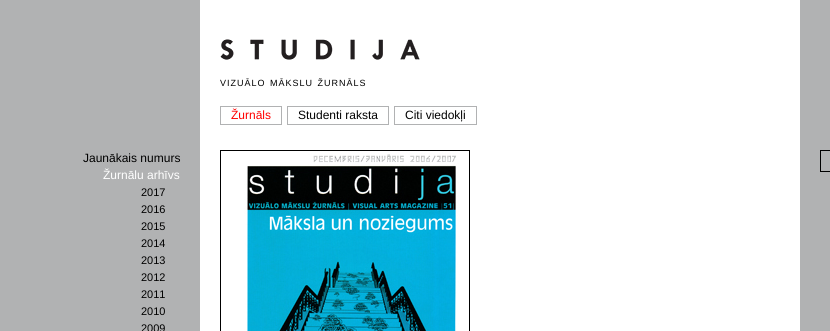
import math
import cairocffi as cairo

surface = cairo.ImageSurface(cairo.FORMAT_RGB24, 830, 331)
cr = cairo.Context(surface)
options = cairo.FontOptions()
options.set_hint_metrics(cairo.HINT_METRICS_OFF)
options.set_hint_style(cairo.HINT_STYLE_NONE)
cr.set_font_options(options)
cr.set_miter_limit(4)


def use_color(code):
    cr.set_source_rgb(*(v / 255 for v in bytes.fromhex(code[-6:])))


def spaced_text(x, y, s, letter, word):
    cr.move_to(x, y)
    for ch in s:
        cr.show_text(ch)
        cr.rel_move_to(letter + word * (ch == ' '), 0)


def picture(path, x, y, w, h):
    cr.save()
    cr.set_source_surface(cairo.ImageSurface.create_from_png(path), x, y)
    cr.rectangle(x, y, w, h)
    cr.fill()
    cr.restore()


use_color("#ffffff")
cr.paint()
use_color("#b1b2b3")
cr.rectangle(0, 0, 200, 331)
cr.fill()
picture("img1.png", 220, 39, 200, 21)
cr.select_font_face("Liberation Sans")
cr.set_font_size(9)
use_color("#000000")
spaced_text(220, 86, "VIZUĀLO MĀKSLU ŽURNĀLS", 1, 1)
use_color("#b1b2b3")
cr.rectangle(220, 106, 62, 1)
cr.fill()
cr.rectangle(281, 106, 1, 19)
cr.fill()
cr.rectangle(220, 124, 62, 1)
cr.fill()
cr.rectangle(220, 106, 1, 19)
cr.fill()
cr.set_font_size(12)
use_color("#ff0000")
cr.move_to(231, 119)
cr.show_text("Žurnāls")
use_color("#b1b2b3")
cr.rectangle(287, 106, 102, 1)
cr.fill()
cr.rectangle(388, 106, 1, 19)
cr.fill()
cr.rectangle(287, 124, 102, 1)
cr.fill()
cr.rectangle(287, 106, 1, 19)
cr.fill()
use_color("#000000")
cr.move_to(298, 119)
cr.show_text("Studenti raksta")
use_color("#b1b2b3")
cr.rectangle(394, 106, 83, 1)
cr.fill()
cr.rectangle(476, 106, 1, 19)
cr.fill()
cr.rectangle(394, 124, 83, 1)
cr.fill()
cr.rectangle(394, 106, 1, 19)
cr.fill()
use_color("#000000")
cr.move_to(405, 119)
cr.show_text("Citi viedokļi")
use_color("#b1b2b3")
cr.rectangle(800, 0, 30, 331)
cr.fill()
use_color("#000000")
cr.move_to(83, 162)
cr.show_text("Jaunākais numurs")
use_color("#ffffff")
cr.move_to(103, 179)
cr.show_text("Žurnālu arhīvs")
cr.set_font_size(11)
use_color("#000000")
cr.move_to(141, 196)
cr.show_text("2017")
cr.move_to(141, 213)
cr.show_text("2016")
cr.move_to(141, 230)
cr.show_text("2015")
cr.move_to(141, 247)
cr.show_text("2014")
cr.move_to(141, 264)
cr.show_text("2013")
cr.move_to(141, 281)
cr.show_text("2012")
cr.move_to(141, 298)
cr.show_text("2011")
cr.move_to(141, 315)
cr.show_text("2010")
cr.move_to(141, 332)
cr.show_text("2009")
picture("img2.png", 220, 150, 250, 181)
cr.rectangle(820.5, 150.5, 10, 21)
cr.set_line_width(1)
cr.stroke()
surface.write_to_png("result.png")
